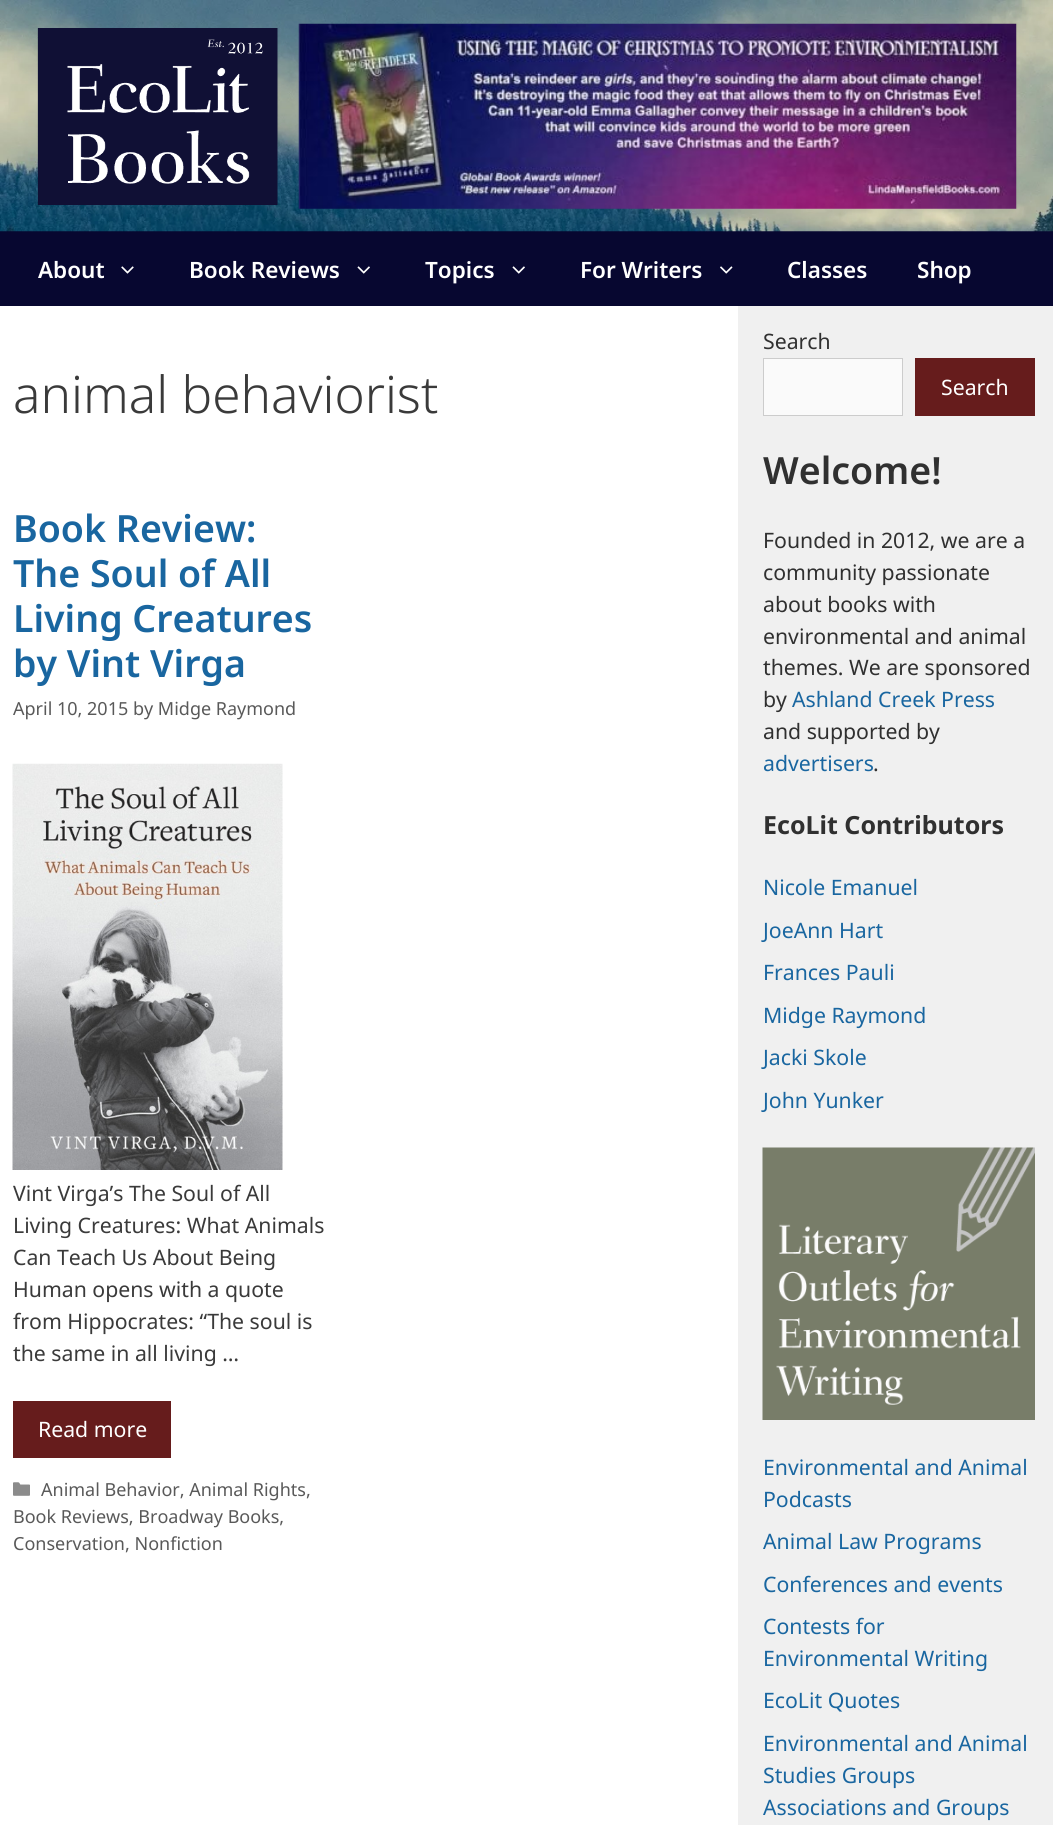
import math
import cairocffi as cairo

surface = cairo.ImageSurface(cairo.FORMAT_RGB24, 1053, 1825)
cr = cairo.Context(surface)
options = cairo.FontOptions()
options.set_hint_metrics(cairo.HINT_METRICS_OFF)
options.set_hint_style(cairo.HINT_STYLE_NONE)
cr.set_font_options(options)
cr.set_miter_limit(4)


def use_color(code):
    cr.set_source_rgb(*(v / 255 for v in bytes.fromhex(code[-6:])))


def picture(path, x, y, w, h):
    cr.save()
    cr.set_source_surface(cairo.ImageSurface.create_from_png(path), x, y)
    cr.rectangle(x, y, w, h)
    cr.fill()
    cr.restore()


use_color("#ffffff")
cr.paint()
use_color("#070730")
cr.rectangle(0, 231, 1053, 75)
cr.fill()
picture("img1.png", 0, 0, 1053, 232)
picture("img2.png", 37, 28, 241, 177)
picture("img3.png", 298, 23, 719, 186)
cr.select_font_face("Noto Sans SemiBold")
cr.set_font_size(22.5)
use_color("#ffffff")
cr.move_to(38, 278)
cr.show_text("About")
picture("img4.png", 121, 266, 13, 8)
cr.move_to(189, 278)
cr.show_text("Book Reviews")
picture("img5.png", 357, 266, 13, 8)
cr.move_to(425, 278)
cr.show_text("Topics")
picture("img5.png", 512, 266, 13, 8)
cr.move_to(580, 278)
cr.show_text("For Writers")
picture("img6.png", 720, 266, 13, 8)
cr.move_to(787, 278)
cr.show_text("Classes")
cr.move_to(917, 278)
cr.show_text("Shop")
cr.select_font_face("Noto Sans Light")
cr.set_font_size(51.25)
use_color("#3a3a3a")
cr.move_to(13, 413)
cr.show_text("animal behaviorist")
cr.select_font_face("Noto Sans SemiBold")
cr.set_font_size(37.5)
use_color("#1966a0")
cr.move_to(13, 542)
cr.show_text("Book Review:")
cr.move_to(13, 587)
cr.show_text("The Soul of All")
cr.move_to(13, 632)
cr.show_text("Living Creatures")
cr.move_to(13, 677)
cr.show_text("by Vint Virga")
cr.select_font_face("Noto Sans")
cr.set_font_size(18)
use_color("#595959")
cr.move_to(13, 715)
cr.show_text("April 10, 2015 by Midge Raymond")
picture("img7.png", 12, 763, 271, 407)
cr.set_font_size(21.25)
use_color("#3a3a3a")
cr.move_to(13, 1201)
cr.show_text("Vint Virga’s The Soul of All")
cr.move_to(13, 1233)
cr.show_text("Living Creatures: What Animals")
cr.move_to(13, 1265)
cr.show_text("Can Teach Us About Being")
cr.move_to(13, 1297)
cr.show_text("Human opens with a quote")
cr.move_to(13, 1329)
cr.show_text("from Hippocrates: “The soul is")
cr.move_to(13, 1361)
cr.show_text("the same in all living …")
use_color("#661c1c")
cr.rectangle(13, 1401, 158, 57)
cr.fill()
use_color("#ffffff")
cr.move_to(38, 1437)
cr.show_text("Read more")
picture("img8.png", 13, 1482, 17, 14)
cr.set_font_size(18)
use_color("#595959")
cr.move_to(41, 1496)
cr.show_text("Animal Behavior, Animal Rights,")
cr.move_to(13, 1523)
cr.show_text("Book Reviews, Broadway Books,")
cr.move_to(13, 1550)
cr.show_text("Conservation, Nonfiction")
use_color("#f0f0f0")
cr.rectangle(738, 306, 315, 1519)
cr.fill()
cr.set_font_size(21.25)
use_color("#303030")
cr.move_to(763, 349)
cr.show_text("Search")
use_color("#fafafa")
cr.rectangle(763.5, 358.5, 139, 57)
cr.fill_preserve()
use_color("#cccccc")
cr.set_line_width(1)
cr.stroke()
use_color("#661c1c")
cr.rectangle(915, 358, 120, 58)
cr.fill()
use_color("#ffffff")
cr.move_to(941, 395)
cr.show_text("Search")
cr.select_font_face("Noto Sans SemiBold")
cr.set_font_size(37.5)
use_color("#303030")
cr.move_to(763, 484)
cr.show_text("Welcome!")
cr.select_font_face("Noto Sans")
cr.set_font_size(21.25)
cr.move_to(763, 548)
cr.show_text("Founded in 2012, we are a")
cr.move_to(763, 580)
cr.show_text("community passionate")
cr.move_to(763, 612)
cr.show_text("about books with")
cr.move_to(763, 644)
cr.show_text("environmental and animal")
cr.move_to(763, 675)
cr.show_text("themes. We are sponsored")
cr.move_to(763, 707)
cr.show_text("by")
use_color("#1966a0")
cr.move_to(792, 707)
cr.show_text("Ashland Creek Press")
use_color("#303030")
cr.move_to(763, 739)
cr.show_text("and supported by")
use_color("#1966a0")
cr.move_to(763, 771)
cr.show_text("advertisers")
use_color("#303030")
cr.move_to(873, 771)
cr.show_text(".")
cr.select_font_face("Noto Sans", cairo.FONT_SLANT_NORMAL, cairo.FONT_WEIGHT_BOLD)
cr.set_font_size(25)
cr.move_to(763, 834)
cr.show_text("EcoLit Contributors")
cr.select_font_face("Noto Sans")
cr.set_font_size(21.25)
use_color("#1966a0")
cr.move_to(763, 895)
cr.show_text("Nicole Emanuel")
cr.move_to(763, 938)
cr.show_text("JoeAnn Hart")
cr.move_to(763, 980)
cr.show_text("Frances Pauli")
cr.move_to(763, 1023)
cr.show_text("Midge Raymond")
cr.move_to(763, 1065)
cr.show_text("Jacki Skole")
cr.move_to(763, 1108)
cr.show_text("John Yunker")
picture("img9.png", 762, 1147, 273, 273)
cr.move_to(763, 1475)
cr.show_text("Environmental and Animal")
cr.move_to(763, 1507)
cr.show_text("Podcasts")
cr.move_to(763, 1549)
cr.show_text("Animal Law Programs")
cr.move_to(763, 1592)
cr.show_text("Conferences and events")
cr.move_to(763, 1634)
cr.show_text("Contests for")
cr.move_to(763, 1666)
cr.show_text("Environmental Writing")
cr.move_to(763, 1708)
cr.show_text("EcoLit Quotes")
cr.move_to(763, 1751)
cr.show_text("Environmental and Animal")
cr.move_to(763, 1783)
cr.show_text("Studies Groups")
cr.move_to(763, 1815)
cr.show_text("Associations and Groups")
surface.write_to_png("result.png")
